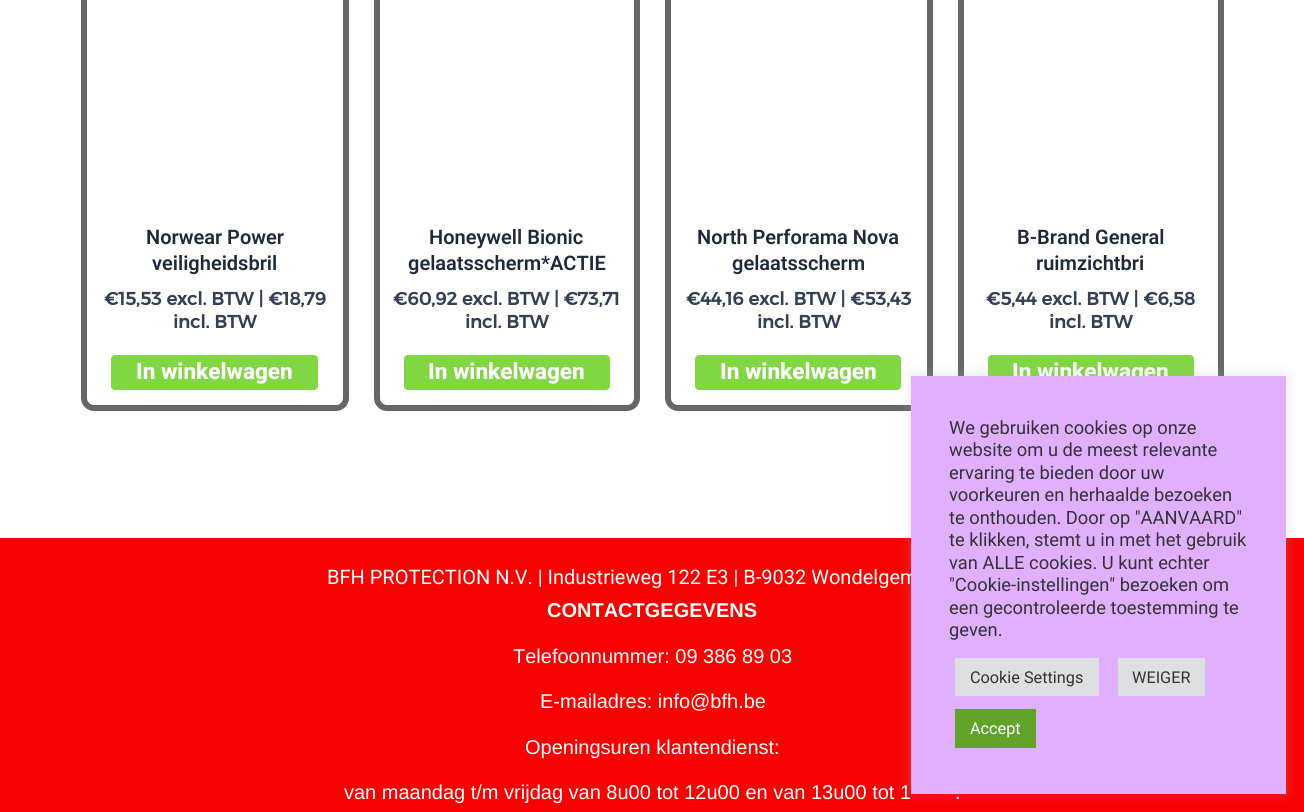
import math
import cairocffi as cairo

surface = cairo.ImageSurface(cairo.FORMAT_RGB24, 1304, 812)
cr = cairo.Context(surface)
options = cairo.FontOptions()
options.set_hint_metrics(cairo.HINT_METRICS_OFF)
options.set_hint_style(cairo.HINT_STYLE_NONE)
cr.set_font_options(options)
cr.set_miter_limit(4)


def use_color(code):
    cr.set_source_rgb(*(v / 255 for v in bytes.fromhex(code[-6:])))


def round_rect(x, y, w, h, r):
    cr.new_sub_path()
    for i, (u, v) in enumerate([(x + w - r, y + h - r), (x + r, y + h - r), (x + r, y + r), (x + w - r, y + r)]):
        cr.arc(u, v, r, i * math.pi / 2, (i + 1) * math.pi / 2)
    cr.close_path()


def shadow(x, y, w, h, r, blur, alpha):
    cr.push_group_with_content(cairo.CONTENT_ALPHA)
    cr.set_operator(cairo.OPERATOR_SOURCE)
    for i in range(15, -16, -2):
        e = blur * i / 6
        if min(w, h) + 2 * e > 0:
            cr.set_source_rgba(0, 0, 0, alpha * math.erfc((i - 1) / 8.5) / 2)
            round_rect(x - e, y - e, w + 2 * e, h + 2 * e, max(0, min(r + e + blur * .6, min(w, h) / 2 + e)))
            cr.fill()
    cr.mask(cr.pop_group())


use_color("#ffffff")
cr.paint()
round_rect(84, -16, 262, 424, 10)
use_color("#666666")
cr.set_line_width(6)
cr.stroke()
cr.select_font_face("Roboto SemiBold")
cr.set_font_size(20)
use_color("#1e293b")
cr.move_to(146, 244)
cr.show_text("Norwear Power")
cr.move_to(152, 270)
cr.show_text("veiligheidsbril")
cr.select_font_face("Alexandria", cairo.FONT_SLANT_NORMAL, cairo.FONT_WEIGHT_BOLD)
cr.set_font_size(18)
use_color("#334155")
cr.move_to(104, 305)
cr.show_text("€15,53 excl. BTW | €18,79")
cr.move_to(173, 328)
cr.show_text("incl. BTW")
use_color("#81d742")
round_rect(111, 355, 207, 35, 4)
cr.fill()
cr.select_font_face("Roboto ExtraBold")
cr.set_font_size(22.5)
use_color("#ffffff")
cr.move_to(136, 379)
cr.show_text("In winkelwagen")
round_rect(377, -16, 260, 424, 10)
use_color("#666666")
cr.stroke()
cr.select_font_face("Roboto SemiBold")
cr.set_font_size(20)
use_color("#1e293b")
cr.move_to(429, 244)
cr.show_text("Honeywell Bionic")
cr.move_to(408, 270)
cr.show_text("gelaatsscherm*ACTIE")
cr.select_font_face("Alexandria", cairo.FONT_SLANT_NORMAL, cairo.FONT_WEIGHT_BOLD)
cr.set_font_size(18)
use_color("#334155")
cr.move_to(393, 305)
cr.show_text("€60,92 excl. BTW | €73,71")
cr.move_to(465, 328)
cr.show_text("incl. BTW")
use_color("#81d742")
round_rect(404, 355, 206, 35, 4)
cr.fill()
cr.select_font_face("Roboto ExtraBold")
cr.set_font_size(22.5)
use_color("#ffffff")
cr.move_to(428, 379)
cr.show_text("In winkelwagen")
round_rect(668, -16, 262, 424, 10)
use_color("#666666")
cr.stroke()
cr.select_font_face("Roboto SemiBold")
cr.set_font_size(20)
use_color("#1e293b")
cr.move_to(697, 244)
cr.show_text("North Perforama Nova")
cr.move_to(732, 270)
cr.show_text("gelaatsscherm")
cr.select_font_face("Alexandria", cairo.FONT_SLANT_NORMAL, cairo.FONT_WEIGHT_BOLD)
cr.set_font_size(18)
use_color("#334155")
cr.move_to(686, 305)
cr.show_text("€44,16 excl. BTW | €53,43")
cr.move_to(757, 328)
cr.show_text("incl. BTW")
use_color("#81d742")
round_rect(695, 355, 206, 35, 4)
cr.fill()
cr.select_font_face("Roboto ExtraBold")
cr.set_font_size(22.5)
use_color("#ffffff")
cr.move_to(720, 379)
cr.show_text("In winkelwagen")
cr.rectangle(961, -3, 260, 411)
use_color("#666666")
cr.stroke()
cr.select_font_face("Roboto SemiBold")
cr.set_font_size(20)
use_color("#1e293b")
cr.move_to(1017, 244)
cr.show_text("B-Brand General")
cr.move_to(1036, 270)
cr.show_text("ruimzichtbri")
cr.select_font_face("Alexandria", cairo.FONT_SLANT_NORMAL, cairo.FONT_WEIGHT_BOLD)
cr.set_font_size(18)
use_color("#334155")
cr.move_to(986, 305)
cr.show_text("€5,44 excl. BTW | €6,58")
cr.move_to(1049, 328)
cr.show_text("incl. BTW")
use_color("#81d742")
round_rect(988, 355, 206, 35, 4)
cr.fill()
cr.select_font_face("Roboto ExtraBold")
cr.set_font_size(22.5)
use_color("#ffffff")
cr.move_to(1012, 379)
cr.show_text("In winkelwagen")
use_color("#f90101")
cr.rectangle(0, 538, 1304, 274)
cr.fill()
cr.select_font_face("Roboto")
cr.set_font_size(20)
use_color("#ffffff")
cr.move_to(327, 584)
cr.show_text("BFH PROTECTION N.V. | Industrieweg 122 E3 | B-9032 Wondelgem")
cr.select_font_face("Liberation Sans", cairo.FONT_SLANT_NORMAL, cairo.FONT_WEIGHT_BOLD)
cr.move_to(547, 617)
cr.show_text("CONTACTGEGEVENS")
cr.select_font_face("Liberation Sans")
cr.move_to(513, 663)
cr.show_text("Telefoonnummer: 09 386 89 03")
cr.move_to(540, 708)
cr.show_text("E-mailadres: info@bfh.be")
cr.move_to(525, 754)
cr.show_text("Openingsuren klantendienst:")
cr.move_to(344, 799)
cr.show_text("van maandag t/m vrijdag van 8u00 tot 12u00 en van 13u00 tot 1")
cr.move_to(955, 799)
cr.show_text(".")
use_color("#acabab")
shadow(911, 375, 375, 418, 0, 6, 0.3)
use_color("#e0b0ff")
cr.rectangle(911, 376, 375, 418)
cr.fill()
cr.select_font_face("Roboto")
cr.set_font_size(18.3)
use_color("#333333")
cr.move_to(949, 434)
cr.show_text("We gebruiken cookies op onze")
cr.move_to(949, 456)
cr.show_text("website om u de meest relevante")
cr.move_to(949, 479)
cr.show_text("ervaring te bieden door uw")
cr.move_to(949, 501)
cr.show_text("voorkeuren en herhaalde bezoeken")
cr.move_to(949, 524)
cr.show_text("te onthouden. Door op \"AANVAARD\"")
cr.move_to(949, 546)
cr.show_text("te klikken, stemt u in met het gebruik")
cr.move_to(949, 569)
cr.show_text("van ALLE cookies. U kunt echter")
cr.move_to(949, 591)
cr.show_text("\"Cookie-instellingen\" bezoeken om")
cr.move_to(949, 614)
cr.show_text("een gecontroleerde toestemming te")
cr.move_to(949, 636)
cr.show_text("geven.")
use_color("#dedfe0")
cr.rectangle(955, 658, 144, 38)
cr.fill()
cr.set_font_size(16.25)
use_color("#333333")
cr.move_to(970, 683)
cr.show_text("Cookie Settings")
use_color("#dedfe0")
cr.rectangle(1118, 658, 87, 38)
cr.fill()
use_color("#333333")
cr.move_to(1132, 683)
cr.show_text("WEIGER")
use_color("#61a229")
cr.rectangle(955, 709, 81, 39)
cr.fill()
use_color("#ffffff")
cr.move_to(970, 734)
cr.show_text("Accept")
surface.write_to_png("result.png")
